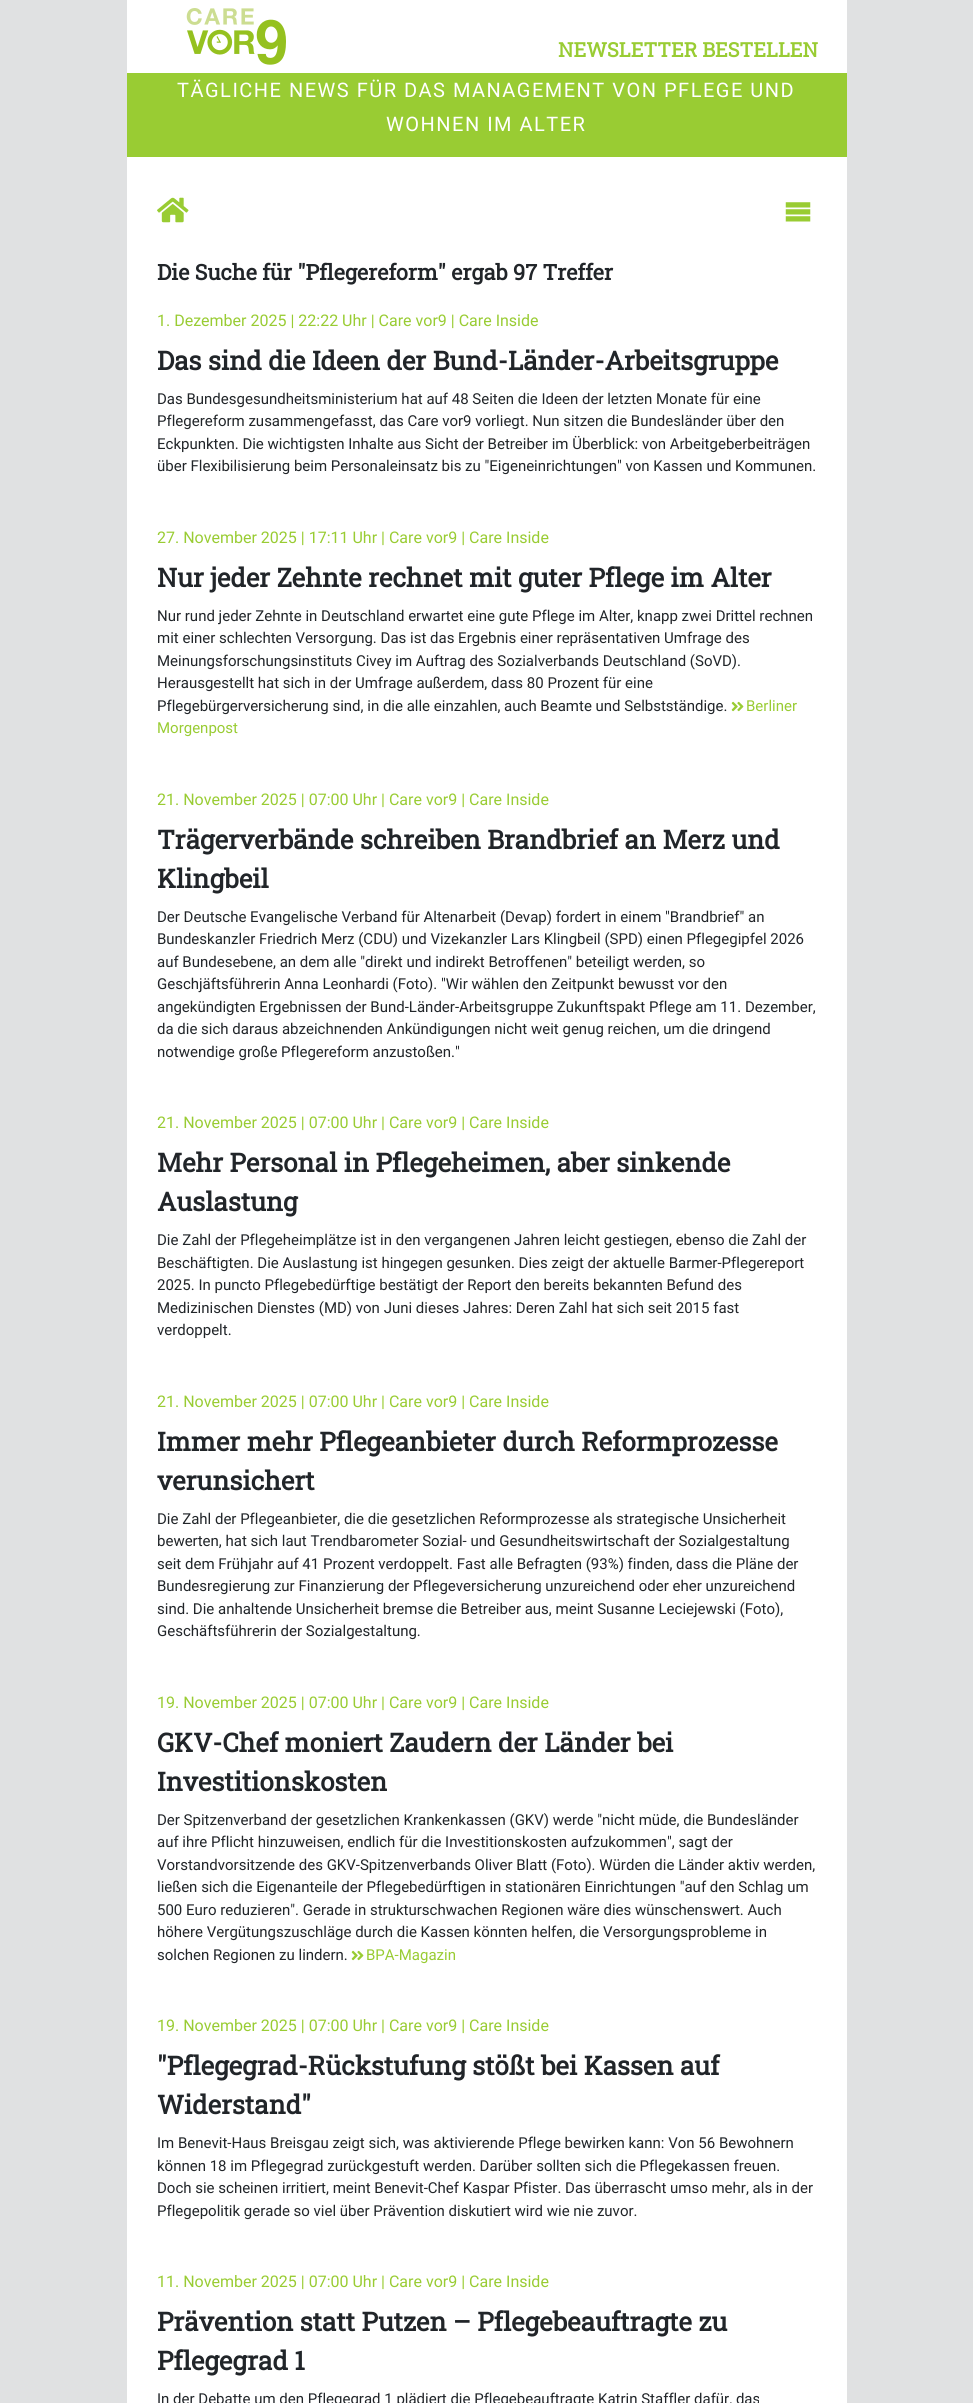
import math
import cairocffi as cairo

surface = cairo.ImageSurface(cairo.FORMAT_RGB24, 973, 2403)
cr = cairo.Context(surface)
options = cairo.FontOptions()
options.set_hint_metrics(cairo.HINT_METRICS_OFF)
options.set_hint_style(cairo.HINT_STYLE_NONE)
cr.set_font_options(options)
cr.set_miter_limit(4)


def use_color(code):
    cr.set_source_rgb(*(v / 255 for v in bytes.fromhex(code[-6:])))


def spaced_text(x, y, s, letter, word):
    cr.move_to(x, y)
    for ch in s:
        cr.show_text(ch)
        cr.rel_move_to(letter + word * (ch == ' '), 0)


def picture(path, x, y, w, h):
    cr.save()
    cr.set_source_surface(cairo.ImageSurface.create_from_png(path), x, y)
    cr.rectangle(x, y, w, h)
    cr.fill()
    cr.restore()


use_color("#e0e1e2")
cr.paint()
use_color("#ffffff")
cr.rectangle(127, 0, 720, 2403)
cr.fill()
picture("img1.png", 186, 8, 100, 57)
cr.select_font_face("Roboto Slab", cairo.FONT_SLANT_NORMAL, cairo.FONT_WEIGHT_BOLD)
cr.set_font_size(20)
use_color("#99cc33")
cr.move_to(558, 57)
cr.show_text("NEWSLETTER BESTELLEN")
cr.rectangle(127, 73, 720, 84)
cr.fill()
cr.select_font_face("Roboto")
use_color("#ffffff")
spaced_text(177, 97, "TÄGLICHE NEWS FÜR DAS MANAGEMENT VON PFLEGE UND", 1.5, 0)
spaced_text(386, 131, "WOHNEN IM ALTER", 1.5, 0)
picture("img2.png", 157, 197, 32, 26)
picture("img3.png", 785, 202, 26, 20)
cr.select_font_face("Roboto Slab", cairo.FONT_SLANT_NORMAL, cairo.FONT_WEIGHT_BOLD)
cr.set_font_size(21.6)
use_color("#212529")
cr.move_to(157, 280)
cr.show_text("Die Suche für \"Pflegereform\" ergab 97 Treffer")
cr.select_font_face("Roboto")
cr.set_font_size(16)
use_color("#99cc33")
cr.move_to(157, 326)
cr.show_text("1. Dezember 2025 | 22:22 Uhr | Care vor9 | Care Inside")
cr.select_font_face("Roboto Slab", cairo.FONT_SLANT_NORMAL, cairo.FONT_WEIGHT_BOLD)
cr.set_font_size(26)
use_color("#212529")
cr.move_to(157, 370)
cr.show_text("Das sind die Ideen der Bund-Länder-Arbeitsgruppe")
cr.select_font_face("Roboto")
cr.set_font_size(15)
cr.move_to(157, 404)
cr.show_text("Das Bundesgesundheitsministerium hat auf 48 Seiten die Ideen der letzten Monate für eine")
cr.move_to(157, 426)
cr.show_text("Pflegereform zusammengefasst, das Care vor9 vorliegt. Nun sitzen die Bundesländer über den")
cr.move_to(157, 449)
cr.show_text("Eckpunkten. Die wichtigsten Inhalte aus Sicht der Betreiber im Überblick: von Arbeitgeberbeiträgen")
cr.move_to(157, 471)
cr.show_text("über Flexibilisierung beim Personaleinsatz bis zu \"Eigeneinrichtungen\" von Kassen und Kommunen.")
cr.set_font_size(16)
use_color("#99cc33")
cr.move_to(157, 543)
cr.show_text("27. November 2025 | 17:11 Uhr | Care vor9 | Care Inside")
cr.select_font_face("Roboto Slab", cairo.FONT_SLANT_NORMAL, cairo.FONT_WEIGHT_BOLD)
cr.set_font_size(26)
use_color("#212529")
cr.move_to(157, 587)
cr.show_text("Nur jeder Zehnte rechnet mit guter Pflege im Alter")
cr.select_font_face("Roboto")
cr.set_font_size(15)
cr.move_to(157, 621)
cr.show_text("Nur rund jeder Zehnte in Deutschland erwartet eine gute Pflege im Alter, knapp zwei Drittel rechnen")
cr.move_to(157, 643)
cr.show_text("mit einer schlechten Versorgung. Das ist das Ergebnis einer repräsentativen Umfrage des")
cr.move_to(157, 666)
cr.show_text("Meinungsforschungsinstituts Civey im Auftrag des Sozialverbands Deutschland (SoVD).")
cr.move_to(157, 688)
cr.show_text("Herausgestellt hat sich in der Umfrage außerdem, dass 80 Prozent für eine")
cr.move_to(157, 711)
cr.show_text("Pflegebürgerversicherung sind, in die alle einzahlen, auch Beamte und Selbstständige.")
picture("img4.png", 731, 701, 13, 11)
use_color("#99cc33")
cr.move_to(746, 711)
cr.show_text("Berliner")
cr.move_to(157, 733)
cr.show_text("Morgenpost")
cr.set_font_size(16)
cr.move_to(157, 805)
cr.show_text("21. November 2025 | 07:00 Uhr | Care vor9 | Care Inside")
cr.select_font_face("Roboto Slab", cairo.FONT_SLANT_NORMAL, cairo.FONT_WEIGHT_BOLD)
cr.set_font_size(26)
use_color("#212529")
cr.move_to(157, 849)
cr.show_text("Trägerverbände schreiben Brandbrief an Merz und")
cr.move_to(157, 888)
cr.show_text("Klingbeil")
cr.select_font_face("Roboto")
cr.set_font_size(15)
cr.move_to(157, 922)
cr.show_text("Der Deutsche Evangelische Verband für Altenarbeit (Devap) fordert in einem \"Brandbrief\" an")
cr.move_to(157, 944)
cr.show_text("Bundeskanzler Friedrich Merz (CDU) und Vizekanzler Lars Klingbeil (SPD) einen Pflegegipfel 2026")
cr.move_to(157, 967)
cr.show_text("auf Bundesebene, an dem alle \"direkt und indirekt Betroffenen\" beteiligt werden, so")
cr.move_to(157, 989)
cr.show_text("Geschjäftsführerin Anna Leonhardi (Foto). \"Wir wählen den Zeitpunkt bewusst vor den")
cr.move_to(157, 1012)
cr.show_text("angekündigten Ergebnissen der Bund-Länder-Arbeitsgruppe Zukunftspakt Pflege am 11. Dezember,")
cr.move_to(157, 1034)
cr.show_text("da die sich daraus abzeichnenden Ankündigungen nicht weit genug reichen, um die dringend")
cr.move_to(157, 1057)
cr.show_text("notwendige große Pflegereform anzustoßen.\"")
cr.set_font_size(16)
use_color("#99cc33")
cr.move_to(157, 1128)
cr.show_text("21. November 2025 | 07:00 Uhr | Care vor9 | Care Inside")
cr.select_font_face("Roboto Slab", cairo.FONT_SLANT_NORMAL, cairo.FONT_WEIGHT_BOLD)
cr.set_font_size(26)
use_color("#212529")
cr.move_to(157, 1172)
cr.show_text("Mehr Personal in Pflegeheimen, aber sinkende")
cr.move_to(157, 1211)
cr.show_text("Auslastung")
cr.select_font_face("Roboto")
cr.set_font_size(15)
cr.move_to(157, 1245)
cr.show_text("Die Zahl der Pflegeheimplätze ist in den vergangenen Jahren leicht gestiegen, ebenso die Zahl der")
cr.move_to(157, 1268)
cr.show_text("Beschäftigten. Die Auslastung ist hingegen gesunken. Dies zeigt der aktuelle Barmer-Pflegereport")
cr.move_to(157, 1290)
cr.show_text("2025. In puncto Pflegebedürftige bestätigt der Report den bereits bekannten Befund des")
cr.move_to(157, 1313)
cr.show_text("Medizinischen Dienstes (MD) von Juni dieses Jahres: Deren Zahl hat sich seit 2015 fast")
cr.move_to(157, 1335)
cr.show_text("verdoppelt.")
cr.set_font_size(16)
use_color("#99cc33")
cr.move_to(157, 1407)
cr.show_text("21. November 2025 | 07:00 Uhr | Care vor9 | Care Inside")
cr.select_font_face("Roboto Slab", cairo.FONT_SLANT_NORMAL, cairo.FONT_WEIGHT_BOLD)
cr.set_font_size(26)
use_color("#212529")
cr.move_to(157, 1451)
cr.show_text("Immer mehr Pflegeanbieter durch Reformprozesse")
cr.move_to(157, 1490)
cr.show_text("verunsichert")
cr.select_font_face("Roboto")
cr.set_font_size(15)
cr.move_to(157, 1524)
cr.show_text("Die Zahl der Pflegeanbieter, die die gesetzlichen Reformprozesse als strategische Unsicherheit")
cr.move_to(157, 1546)
cr.show_text("bewerten, hat sich laut Trendbarometer Sozial- und Gesundheitswirtschaft der Sozialgestaltung")
cr.move_to(157, 1569)
cr.show_text("seit dem Frühjahr auf 41 Prozent verdoppelt. Fast alle Befragten (93%) finden, dass die Pläne der")
cr.move_to(157, 1591)
cr.show_text("Bundesregierung zur Finanzierung der Pflegeversicherung unzureichend oder eher unzureichend")
cr.move_to(157, 1614)
cr.show_text("sind. Die anhaltende Unsicherheit bremse die Betreiber aus, meint Susanne Leciejewski (Foto),")
cr.move_to(157, 1636)
cr.show_text("Geschäftsführerin der Sozialgestaltung.")
cr.set_font_size(16)
use_color("#99cc33")
cr.move_to(157, 1708)
cr.show_text("19. November 2025 | 07:00 Uhr | Care vor9 | Care Inside")
cr.select_font_face("Roboto Slab", cairo.FONT_SLANT_NORMAL, cairo.FONT_WEIGHT_BOLD)
cr.set_font_size(26)
use_color("#212529")
cr.move_to(157, 1752)
cr.show_text("GKV-Chef moniert Zaudern der Länder bei")
cr.move_to(157, 1791)
cr.show_text("Investitionskosten")
cr.select_font_face("Roboto")
cr.set_font_size(15)
cr.move_to(157, 1825)
cr.show_text("Der Spitzenverband der gesetzlichen Krankenkassen (GKV) werde \"nicht müde, die Bundesländer")
cr.move_to(157, 1847)
cr.show_text("auf ihre Pflicht hinzuweisen, endlich für die Investitionskosten aufzukommen\", sagt der")
cr.move_to(157, 1870)
cr.show_text("Vorstandvorsitzende des GKV-Spitzenverbands Oliver Blatt (Foto). Würden die Länder aktiv werden,")
cr.move_to(157, 1892)
cr.show_text("ließen sich die Eigenanteile der Pflegebedürftigen in stationären Einrichtungen \"auf den Schlag um")
cr.move_to(157, 1915)
cr.show_text("500 Euro reduzieren\". Gerade in strukturschwachen Regionen wäre dies wünschenswert. Auch")
cr.move_to(157, 1937)
cr.show_text("höhere Vergütungszuschläge durch die Kassen könnten helfen, die Versorgungsprobleme in")
cr.move_to(157, 1960)
cr.show_text("solchen Regionen zu lindern.")
picture("img4.png", 351, 1950, 13, 11)
use_color("#99cc33")
cr.move_to(366, 1960)
cr.show_text("BPA-Magazin")
cr.set_font_size(16)
cr.move_to(157, 2031)
cr.show_text("19. November 2025 | 07:00 Uhr | Care vor9 | Care Inside")
cr.select_font_face("Roboto Slab", cairo.FONT_SLANT_NORMAL, cairo.FONT_WEIGHT_BOLD)
cr.set_font_size(26)
use_color("#212529")
cr.move_to(157, 2075)
cr.show_text("\"Pflegegrad-Rückstufung stößt bei Kassen auf")
cr.move_to(157, 2114)
cr.show_text("Widerstand\"")
cr.select_font_face("Roboto")
cr.set_font_size(15)
cr.move_to(157, 2148)
cr.show_text("Im Benevit-Haus Breisgau zeigt sich, was aktivierende Pflege bewirken kann: Von 56 Bewohnern")
cr.move_to(157, 2171)
cr.show_text("können 18 im Pflegegrad zurückgestuft werden. Darüber sollten sich die Pflegekassen freuen.")
cr.move_to(157, 2193)
cr.show_text("Doch sie scheinen irritiert, meint Benevit-Chef Kaspar Pfister. Das überrascht umso mehr, als in der")
cr.move_to(157, 2216)
cr.show_text("Pflegepolitik gerade so viel über Prävention diskutiert wird wie nie zuvor.")
cr.set_font_size(16)
use_color("#99cc33")
cr.move_to(157, 2287)
cr.show_text("11. November 2025 | 07:00 Uhr | Care vor9 | Care Inside")
cr.select_font_face("Roboto Slab", cairo.FONT_SLANT_NORMAL, cairo.FONT_WEIGHT_BOLD)
cr.set_font_size(26)
use_color("#212529")
cr.move_to(157, 2331)
cr.show_text("Prävention statt Putzen – Pflegebeauftragte zu")
cr.move_to(157, 2370)
cr.show_text("Pflegegrad 1")
cr.select_font_face("Roboto")
cr.set_font_size(15)
cr.move_to(157, 2404)
cr.show_text("In der Debatte um den Pflegegrad 1 plädiert die Pflegebeauftragte Katrin Staffler dafür, das")
surface.write_to_png("result.png")
